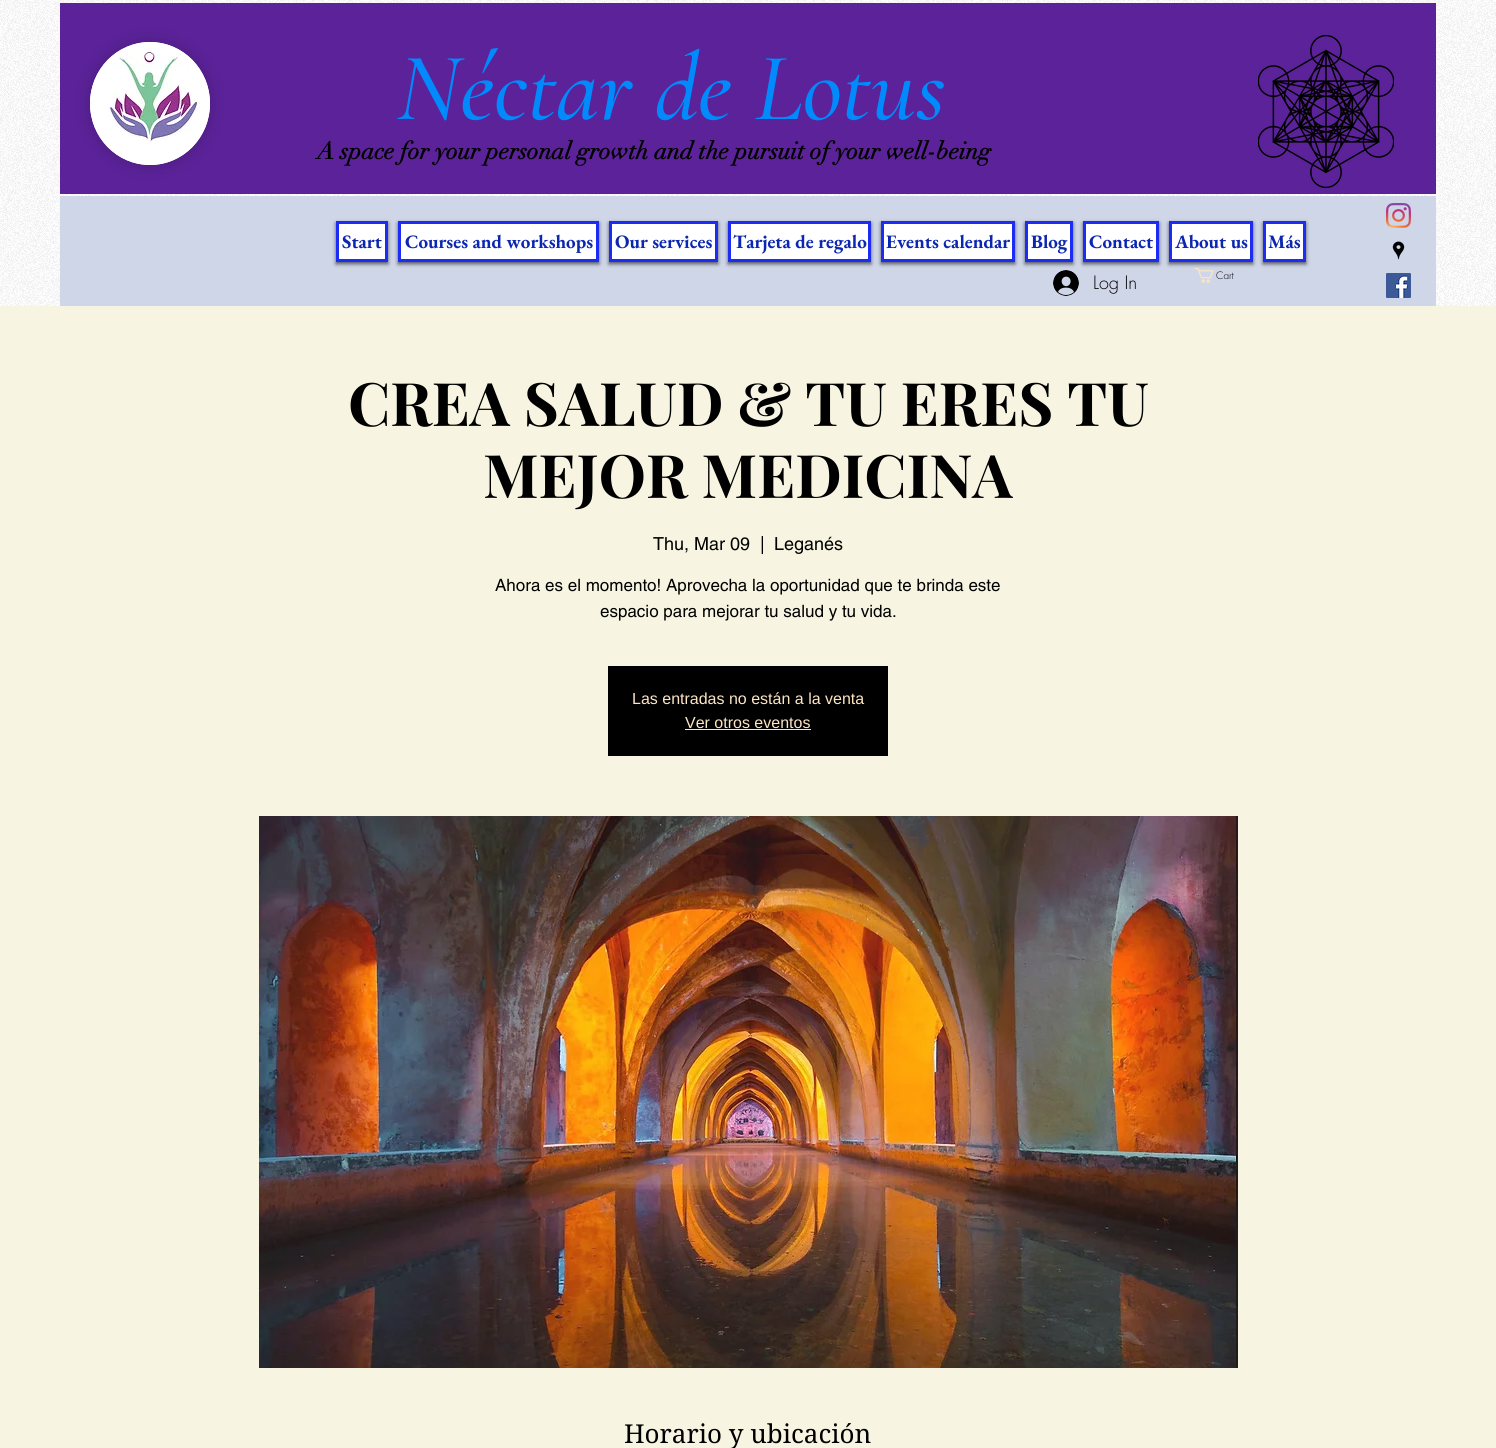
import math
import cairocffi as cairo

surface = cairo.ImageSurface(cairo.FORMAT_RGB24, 1496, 1448)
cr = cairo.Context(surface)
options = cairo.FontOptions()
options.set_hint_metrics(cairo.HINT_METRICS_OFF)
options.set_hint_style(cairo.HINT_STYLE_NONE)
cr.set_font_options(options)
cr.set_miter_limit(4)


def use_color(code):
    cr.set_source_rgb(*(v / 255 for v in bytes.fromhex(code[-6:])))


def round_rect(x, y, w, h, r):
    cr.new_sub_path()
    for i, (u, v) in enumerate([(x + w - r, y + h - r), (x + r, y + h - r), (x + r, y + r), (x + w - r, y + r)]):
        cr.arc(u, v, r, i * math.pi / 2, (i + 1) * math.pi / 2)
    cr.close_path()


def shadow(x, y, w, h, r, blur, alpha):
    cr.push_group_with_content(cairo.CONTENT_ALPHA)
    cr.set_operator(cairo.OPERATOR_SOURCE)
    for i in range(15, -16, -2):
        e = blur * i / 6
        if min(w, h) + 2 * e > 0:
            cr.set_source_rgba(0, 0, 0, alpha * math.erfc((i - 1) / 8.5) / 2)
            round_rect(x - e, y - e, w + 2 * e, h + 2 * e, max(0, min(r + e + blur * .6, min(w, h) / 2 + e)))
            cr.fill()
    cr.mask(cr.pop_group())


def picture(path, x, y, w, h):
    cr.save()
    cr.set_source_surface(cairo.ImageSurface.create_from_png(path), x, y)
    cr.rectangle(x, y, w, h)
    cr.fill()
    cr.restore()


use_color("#f7f5e1")
cr.paint()
use_color("#ffffff")
cr.rectangle(0, 0, 1496, 306)
cr.fill()
picture("img1.png", 0, 0, 1496, 306)
use_color("#5b2299")
cr.rectangle(60, 3, 1376, 191)
cr.fill()
use_color("#000000")
shadow(90, 42, 120, 123, 60, 7, 0.2)
use_color("#ffffff")
cr.new_path()
cr.move_to(150, 42)
cr.curve_to(183, 42, 210, 69.5, 210, 103.5)
cr.curve_to(210, 137.5, 183, 165, 150, 165)
cr.curve_to(117, 165, 90, 137.5, 90, 103.5)
cr.curve_to(90, 69.5, 117, 42, 150, 42)
cr.close_path()
cr.fill()
cr.new_path()
cr.move_to(150, 45)
cr.curve_to(181.5, 45, 207, 71, 207, 103.5)
cr.curve_to(207, 136, 181.5, 162, 150, 162)
cr.curve_to(118.5, 162, 93, 136, 93, 103.5)
cr.curve_to(93, 71, 118.5, 45, 150, 45)
cr.close_path()
cr.set_line_width(6)
cr.stroke()
picture("img2.png", 108, 52, 92, 92)
cr.select_font_face("Cormorant Garamond Medium", cairo.FONT_SLANT_ITALIC)
cr.set_font_size(97)
use_color("#008afc")
cr.move_to(397, 119)
cr.show_text("Néctar de Lotus")
cr.select_font_face("didot", cairo.FONT_SLANT_NORMAL, cairo.FONT_WEIGHT_BOLD)
cr.set_font_size(24)
use_color("#000000")
cr.move_to(317, 159)
cr.show_text("A space for your personal growth and the pursuit of your well-being")
picture("img3.png", 1258, 35, 136, 153)
use_color("#cfd6e8")
cr.rectangle(60, 196, 1376, 110)
cr.fill()
use_color("#000000")
shadow(336, 223, 52, 41, 0, 2, 0.6)
use_color("#ffffff")
cr.rectangle(337.5, 222.5, 49, 38)
cr.fill_preserve()
use_color("#1d2cf3")
cr.set_line_width(3)
cr.stroke()
cr.select_font_face("EB Garamond", cairo.FONT_SLANT_NORMAL, cairo.FONT_WEIGHT_BOLD)
cr.set_font_size(19)
use_color("#0b26b0")
cr.move_to(342, 248)
cr.show_text("Start")
use_color("#000000")
shadow(398, 223, 201, 41, 0, 2, 0.6)
use_color("#ffffff")
cr.rectangle(399.5, 222.5, 198, 38)
cr.fill_preserve()
use_color("#1d2cf3")
cr.stroke()
use_color("#0b26b0")
cr.move_to(405, 248)
cr.show_text("Courses and workshops")
use_color("#000000")
shadow(609, 223, 109, 41, 0, 2, 0.6)
use_color("#ffffff")
cr.rectangle(610.5, 222.5, 106, 38)
cr.fill_preserve()
use_color("#1d2cf3")
cr.stroke()
use_color("#0b26b0")
cr.move_to(615, 248)
cr.show_text("Our services")
use_color("#000000")
shadow(728, 223, 143, 41, 0, 2, 0.6)
use_color("#ffffff")
cr.rectangle(729.5, 222.5, 140, 38)
cr.fill_preserve()
use_color("#1d2cf3")
cr.stroke()
use_color("#0b26b0")
cr.move_to(733, 248)
cr.show_text("Tarjeta de regalo")
use_color("#000000")
shadow(881, 223, 134, 41, 0, 2, 0.6)
use_color("#ffffff")
cr.rectangle(882.5, 222.5, 131, 38)
cr.fill_preserve()
use_color("#1d2cf3")
cr.stroke()
use_color("#0b26b0")
cr.move_to(886, 248)
cr.show_text("Events calendar")
use_color("#000000")
shadow(1025, 223, 48, 41, 0, 2, 0.6)
use_color("#ffffff")
cr.rectangle(1026.5, 222.5, 45, 38)
cr.fill_preserve()
use_color("#1d2cf3")
cr.stroke()
use_color("#0b26b0")
cr.move_to(1031, 248)
cr.show_text("Blog")
use_color("#000000")
shadow(1083, 223, 76, 41, 0, 2, 0.6)
use_color("#ffffff")
cr.rectangle(1084.5, 222.5, 73, 38)
cr.fill_preserve()
use_color("#1d2cf3")
cr.stroke()
use_color("#0b26b0")
cr.move_to(1089, 248)
cr.show_text("Contact")
use_color("#000000")
shadow(1169, 223, 84, 41, 0, 2, 0.6)
use_color("#ffffff")
cr.rectangle(1170.5, 222.5, 81, 38)
cr.fill_preserve()
use_color("#1d2cf3")
cr.stroke()
use_color("#0b26b0")
cr.move_to(1175, 248)
cr.show_text("About us")
use_color("#000000")
shadow(1263, 223, 43, 41, 0, 2, 0.6)
use_color("#ffffff")
cr.rectangle(1264.5, 222.5, 40, 38)
cr.fill_preserve()
use_color("#1d2cf3")
cr.stroke()
use_color("#0b26b0")
cr.move_to(1268, 248)
cr.show_text("Más")
picture("img4.png", 1386, 203, 25, 25)
picture("img5.png", 1392, 241, 13, 19)
picture("img6.png", 1386, 273, 25, 25)
picture("img7.png", 1053, 270, 26, 26)
cr.select_font_face("futura Light")
cr.set_font_size(18)
use_color("#000000")
cr.move_to(1093, 289)
cr.show_text("Log In")
picture("img8.png", 1195, 268, 19, 15)
cr.set_font_size(10)
cr.move_to(1216, 279)
cr.show_text("Cart")
cr.select_font_face("Playfair Display", cairo.FONT_SLANT_NORMAL, cairo.FONT_WEIGHT_BOLD)
cr.set_font_size(60)
cr.move_to(348, 426)
cr.show_text("CREA SALUD & TU ERES TU")
cr.move_to(483, 498)
cr.show_text("MEJOR MEDICINA")
cr.select_font_face("helvetica")
cr.set_font_size(18)
cr.move_to(653, 550)
cr.show_text("Thu, Mar 09")
cr.move_to(760, 550)
cr.show_text("|")
cr.move_to(774, 550)
cr.show_text("Leganés")
cr.set_font_size(17)
cr.move_to(495, 591)
cr.show_text("Ahora es el momento! Aprovecha la oportunidad que te brinda este")
cr.move_to(600, 617)
cr.show_text("espacio para mejorar tu salud y tu vida.")
cr.rectangle(608, 666, 280, 90)
cr.fill()
cr.select_font_face("Liberation Sans")
cr.set_font_size(16)
use_color("#fee6c4")
cr.move_to(632, 704)
cr.show_text("Las entradas no están a la venta")
cr.move_to(685, 728)
cr.show_text("Ver otros eventos")
cr.rectangle(685, 729, 126, 1)
cr.fill()
picture("img9.png", 259, 816, 979, 552)
cr.select_font_face("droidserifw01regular")
cr.set_font_size(26)
use_color("#000000")
cr.move_to(624, 1443)
cr.show_text("Horario y ubicación")
surface.write_to_png("result.png")
